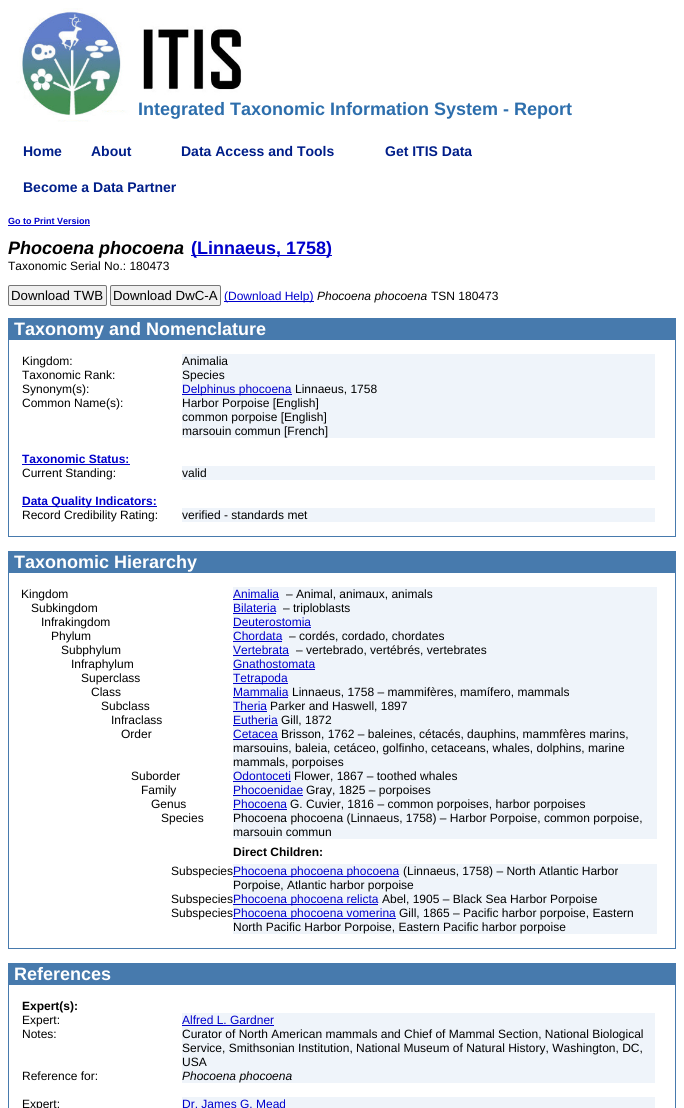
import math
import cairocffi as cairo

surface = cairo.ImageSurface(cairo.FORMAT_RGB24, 684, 1108)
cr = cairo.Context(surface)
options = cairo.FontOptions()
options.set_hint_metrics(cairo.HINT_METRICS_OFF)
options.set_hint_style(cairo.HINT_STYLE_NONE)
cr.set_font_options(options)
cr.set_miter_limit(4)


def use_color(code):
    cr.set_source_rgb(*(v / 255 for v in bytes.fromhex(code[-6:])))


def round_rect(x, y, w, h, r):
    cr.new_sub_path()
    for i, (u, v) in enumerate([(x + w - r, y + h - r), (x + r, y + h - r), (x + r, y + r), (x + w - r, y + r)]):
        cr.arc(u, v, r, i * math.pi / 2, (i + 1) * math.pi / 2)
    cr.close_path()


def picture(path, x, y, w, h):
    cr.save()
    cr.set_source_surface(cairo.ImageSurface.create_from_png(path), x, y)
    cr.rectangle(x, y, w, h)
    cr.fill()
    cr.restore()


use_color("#ffffff")
cr.paint()
picture("img1.png", 16, 8, 226, 114)
cr.select_font_face("Liberation Sans", cairo.FONT_SLANT_NORMAL, cairo.FONT_WEIGHT_BOLD)
cr.set_font_size(18)
use_color("#2d6eac")
cr.move_to(138, 115)
cr.show_text("Integrated Taxonomic Information System - Report")
cr.set_font_size(14)
use_color("#001e89")
cr.move_to(23, 156)
cr.show_text("Home")
cr.move_to(91, 156)
cr.show_text("About")
cr.move_to(181, 156)
cr.show_text("Data Access and Tools")
cr.move_to(385, 156)
cr.show_text("Get ITIS Data")
cr.move_to(23, 192)
cr.show_text("Become a Data Partner")
cr.set_font_size(9)
use_color("#0000cc")
cr.move_to(8, 224)
cr.show_text("Go to Print Version")
cr.rectangle(8, 225, 82, 1)
cr.fill()
cr.select_font_face("Liberation Sans", cairo.FONT_SLANT_ITALIC, cairo.FONT_WEIGHT_BOLD)
cr.set_font_size(18)
use_color("#000000")
cr.move_to(8, 254)
cr.show_text("Phocoena phocoena")
use_color("#0000cc")
cr.rectangle(191, 255, 141, 1)
cr.fill()
cr.select_font_face("Liberation Sans", cairo.FONT_SLANT_NORMAL, cairo.FONT_WEIGHT_BOLD)
cr.move_to(191, 254)
cr.show_text("(Linnaeus, 1758)")
cr.select_font_face("Liberation Sans")
cr.set_font_size(12)
use_color("#000000")
cr.move_to(8, 270)
cr.show_text("Taxonomic Serial No.: 180473")
use_color("#efefef")
round_rect(8.5, 285.5, 98, 20, 1.5)
cr.fill_preserve()
use_color("#767676")
cr.set_line_width(1)
cr.stroke()
cr.set_font_size(13.25)
use_color("#000000")
cr.move_to(11, 300)
cr.show_text("Download TWB")
use_color("#efefef")
round_rect(110.5, 285.5, 110, 20, 1.5)
cr.fill_preserve()
use_color("#767676")
cr.stroke()
use_color("#000000")
cr.move_to(113, 300)
cr.show_text("Download DwC-A")
use_color("#0000cc")
cr.rectangle(224, 301, 90, 1)
cr.fill()
cr.set_font_size(12)
cr.move_to(224, 300)
cr.show_text("(Download Help)")
cr.select_font_face("Liberation Sans", cairo.FONT_SLANT_ITALIC)
use_color("#000000")
cr.move_to(317, 300)
cr.show_text("Phocoena phocoena")
cr.select_font_face("Liberation Sans")
cr.move_to(431, 300)
cr.show_text("TSN 180473")
use_color("#477aad")
cr.rectangle(8, 318, 668, 219)
cr.fill()
cr.select_font_face("Liberation Sans", cairo.FONT_SLANT_NORMAL, cairo.FONT_WEIGHT_BOLD)
cr.set_font_size(18)
use_color("#ffffff")
cr.move_to(14, 335)
cr.show_text("Taxonomy and Nomenclature")
cr.rectangle(9, 340, 666, 196)
cr.fill()
cr.select_font_face("Liberation Sans")
cr.set_font_size(12)
use_color("#000000")
cr.move_to(22, 365)
cr.show_text("Kingdom:")
use_color("#eff4fa")
cr.rectangle(182, 354, 473, 84)
cr.fill()
use_color("#000000")
cr.move_to(182, 365)
cr.show_text("Animalia")
cr.move_to(22, 379)
cr.show_text("Taxonomic Rank:")
cr.move_to(182, 379)
cr.show_text("Species")
cr.move_to(22, 393)
cr.show_text("Synonym(s):")
use_color("#0000cc")
cr.rectangle(182, 394, 110, 1)
cr.fill()
cr.move_to(182, 393)
cr.show_text("Delphinus phocoena")
use_color("#000000")
cr.move_to(295, 393)
cr.show_text("Linnaeus, 1758")
cr.move_to(22, 407)
cr.show_text("Common Name(s):")
cr.move_to(182, 407)
cr.show_text("Harbor Porpoise [English]")
cr.move_to(182, 421)
cr.show_text("common porpoise [English]")
cr.move_to(182, 435)
cr.show_text("marsouin commun [French]")
cr.select_font_face("Liberation Sans", cairo.FONT_SLANT_NORMAL, cairo.FONT_WEIGHT_BOLD)
use_color("#0000cc")
cr.move_to(22, 463)
cr.show_text("Taxonomic Status:")
cr.rectangle(22, 464, 108, 1)
cr.fill()
cr.select_font_face("Liberation Sans")
use_color("#000000")
cr.move_to(22, 477)
cr.show_text("Current Standing:")
use_color("#eff4fa")
cr.rectangle(182, 466, 473, 14)
cr.fill()
use_color("#000000")
cr.move_to(182, 477)
cr.show_text("valid")
use_color("#0000cc")
cr.rectangle(22, 506, 135, 1)
cr.fill()
cr.select_font_face("Liberation Sans", cairo.FONT_SLANT_NORMAL, cairo.FONT_WEIGHT_BOLD)
cr.move_to(22, 505)
cr.show_text("Data Quality Indicators:")
cr.select_font_face("Liberation Sans")
use_color("#000000")
cr.move_to(22, 519)
cr.show_text("Record Credibility Rating:")
use_color("#eff4fa")
cr.rectangle(182, 508, 473, 14)
cr.fill()
use_color("#000000")
cr.move_to(182, 519)
cr.show_text("verified - standards met")
use_color("#477aad")
cr.rectangle(8, 551, 668, 398)
cr.fill()
cr.select_font_face("Liberation Sans", cairo.FONT_SLANT_NORMAL, cairo.FONT_WEIGHT_BOLD)
cr.set_font_size(18)
use_color("#ffffff")
cr.move_to(14, 568)
cr.show_text("Taxonomic Hierarchy")
cr.rectangle(9, 573, 666, 375)
cr.fill()
cr.select_font_face("Liberation Sans")
cr.set_font_size(12)
use_color("#000000")
cr.move_to(21, 598)
cr.show_text("Kingdom")
use_color("#eff4fa")
cr.rectangle(233, 587, 424, 252)
cr.fill()
use_color("#0000cc")
cr.move_to(233, 598)
cr.show_text("Animalia")
cr.rectangle(233, 599, 46, 1)
cr.fill()
use_color("#000000")
cr.move_to(286, 598)
cr.show_text("– Animal, animaux, animals")
cr.move_to(31, 612)
cr.show_text("Subkingdom")
use_color("#0000cc")
cr.move_to(233, 612)
cr.show_text("Bilateria")
cr.rectangle(233, 613, 43, 1)
cr.fill()
use_color("#000000")
cr.move_to(283, 612)
cr.show_text("– triploblasts")
cr.move_to(41, 626)
cr.show_text("Infrakingdom")
use_color("#0000cc")
cr.move_to(233, 626)
cr.show_text("Deuterostomia")
cr.rectangle(233, 627, 78, 1)
cr.fill()
use_color("#000000")
cr.move_to(51, 640)
cr.show_text("Phylum")
use_color("#0000cc")
cr.move_to(233, 640)
cr.show_text("Chordata")
cr.rectangle(233, 641, 49, 1)
cr.fill()
use_color("#000000")
cr.move_to(289, 640)
cr.show_text("– cordés, cordado, chordates")
cr.move_to(61, 654)
cr.show_text("Subphylum")
use_color("#0000cc")
cr.move_to(233, 654)
cr.show_text("Vertebrata")
cr.rectangle(233, 655, 56, 1)
cr.fill()
use_color("#000000")
cr.move_to(296, 654)
cr.show_text("– vertebrado, vertébrés, vertebrates")
cr.move_to(71, 668)
cr.show_text("Infraphylum")
use_color("#0000cc")
cr.move_to(233, 668)
cr.show_text("Gnathostomata")
cr.rectangle(233, 669, 82, 1)
cr.fill()
use_color("#000000")
cr.move_to(81, 682)
cr.show_text("Superclass")
use_color("#0000cc")
cr.rectangle(233, 683, 55, 1)
cr.fill()
cr.move_to(233, 682)
cr.show_text("Tetrapoda")
use_color("#000000")
cr.move_to(91, 696)
cr.show_text("Class")
use_color("#0000cc")
cr.move_to(233, 696)
cr.show_text("Mammalia")
cr.rectangle(233, 697, 55, 1)
cr.fill()
use_color("#000000")
cr.move_to(292, 696)
cr.show_text("Linnaeus, 1758 – mammifères, mamífero, mammals")
cr.move_to(101, 710)
cr.show_text("Subclass")
use_color("#0000cc")
cr.move_to(233, 710)
cr.show_text("Theria")
cr.rectangle(233, 711, 34, 1)
cr.fill()
use_color("#000000")
cr.move_to(270, 710)
cr.show_text("Parker and Haswell, 1897")
cr.move_to(111, 724)
cr.show_text("Infraclass")
use_color("#0000cc")
cr.move_to(233, 724)
cr.show_text("Eutheria")
cr.rectangle(233, 725, 45, 1)
cr.fill()
use_color("#000000")
cr.move_to(281, 724)
cr.show_text("Gill, 1872")
cr.move_to(121, 738)
cr.show_text("Order")
use_color("#0000cc")
cr.move_to(233, 738)
cr.show_text("Cetacea")
cr.rectangle(233, 739, 45, 1)
cr.fill()
use_color("#000000")
cr.move_to(281, 738)
cr.show_text("Brisson, 1762 – baleines, cétacés, dauphins, mammfères marins,")
cr.move_to(233, 752)
cr.show_text("marsouins, baleia, cetáceo, golfinho, cetaceans, whales, dolphins, marine")
cr.move_to(233, 766)
cr.show_text("mammals, porpoises")
cr.move_to(131, 780)
cr.show_text("Suborder")
use_color("#0000cc")
cr.move_to(233, 780)
cr.show_text("Odontoceti")
cr.rectangle(233, 781, 58, 1)
cr.fill()
use_color("#000000")
cr.move_to(294, 780)
cr.show_text("Flower, 1867 – toothed whales")
cr.move_to(141, 794)
cr.show_text("Family")
use_color("#0000cc")
cr.move_to(233, 794)
cr.show_text("Phocoenidae")
cr.rectangle(233, 795, 70, 1)
cr.fill()
use_color("#000000")
cr.move_to(306, 794)
cr.show_text("Gray, 1825 – porpoises")
cr.move_to(151, 808)
cr.show_text("Genus")
use_color("#0000cc")
cr.move_to(233, 808)
cr.show_text("Phocoena")
cr.rectangle(233, 809, 54, 1)
cr.fill()
use_color("#000000")
cr.move_to(290, 808)
cr.show_text("G. Cuvier, 1816 – common porpoises, harbor porpoises")
cr.move_to(161, 822)
cr.show_text("Species")
cr.move_to(233, 822)
cr.show_text("Phocoena phocoena (Linnaeus, 1758) – Harbor Porpoise, common porpoise,")
cr.move_to(233, 836)
cr.show_text("marsouin commun")
cr.select_font_face("Liberation Sans", cairo.FONT_SLANT_NORMAL, cairo.FONT_WEIGHT_BOLD)
cr.move_to(233, 856)
cr.show_text("Direct Children:")
cr.select_font_face("Liberation Sans")
cr.move_to(171, 875)
cr.show_text("Subspecies")
use_color("#eff4fa")
cr.rectangle(233, 864, 424, 70)
cr.fill()
use_color("#0000cc")
cr.rectangle(233, 876, 166, 1)
cr.fill()
cr.move_to(233, 875)
cr.show_text("Phocoena phocoena phocoena")
use_color("#000000")
cr.move_to(403, 875)
cr.show_text("(Linnaeus, 1758) – North Atlantic Harbor")
cr.move_to(233, 889)
cr.show_text("Porpoise, Atlantic harbor porpoise")
cr.move_to(171, 903)
cr.show_text("Subspecies")
use_color("#0000cc")
cr.rectangle(233, 904, 145, 1)
cr.fill()
cr.move_to(233, 903)
cr.show_text("Phocoena phocoena relicta")
use_color("#000000")
cr.move_to(382, 903)
cr.show_text("Abel, 1905 – Black Sea Harbor Porpoise")
cr.move_to(171, 917)
cr.show_text("Subspecies")
use_color("#0000cc")
cr.rectangle(233, 918, 163, 1)
cr.fill()
cr.move_to(233, 917)
cr.show_text("Phocoena phocoena vomerina")
use_color("#000000")
cr.move_to(399, 917)
cr.show_text("Gill, 1865 – Pacific harbor porpoise, Eastern")
cr.move_to(233, 931)
cr.show_text("North Pacific Harbor Porpoise, Eastern Pacific harbor porpoise")
use_color("#477aad")
cr.rectangle(8, 963, 668, 145)
cr.fill()
cr.select_font_face("Liberation Sans", cairo.FONT_SLANT_NORMAL, cairo.FONT_WEIGHT_BOLD)
cr.set_font_size(18)
use_color("#ffffff")
cr.move_to(14, 980)
cr.show_text("References")
cr.rectangle(9, 985, 666, 123)
cr.fill()
cr.set_font_size(12)
use_color("#000000")
cr.move_to(22, 1010)
cr.show_text("Expert(s):")
cr.select_font_face("Liberation Sans")
cr.move_to(22, 1024)
cr.show_text("Expert:")
use_color("#eff4fa")
cr.rectangle(182, 1013, 473, 70)
cr.fill()
use_color("#0000cc")
cr.move_to(182, 1024)
cr.show_text("Alfred L. Gardner")
cr.rectangle(182, 1025, 92, 1)
cr.fill()
use_color("#000000")
cr.move_to(22, 1038)
cr.show_text("Notes:")
cr.move_to(182, 1038)
cr.show_text("Curator of North American mammals and Chief of Mammal Section, National Biological")
cr.move_to(182, 1052)
cr.show_text("Service, Smithsonian Institution, National Museum of Natural History, Washington, DC,")
cr.move_to(182, 1066)
cr.show_text("USA")
cr.move_to(22, 1080)
cr.show_text("Reference for:")
cr.select_font_face("Liberation Sans", cairo.FONT_SLANT_ITALIC)
cr.move_to(182, 1080)
cr.show_text("Phocoena phocoena")
cr.select_font_face("Liberation Sans")
cr.move_to(22, 1108)
cr.show_text("Expert:")
use_color("#eff4fa")
cr.rectangle(182, 1097, 473, 11)
cr.fill()
use_color("#0000cc")
cr.move_to(182, 1108)
cr.show_text("Dr. James G. Mead")
surface.write_to_png("result.png")
